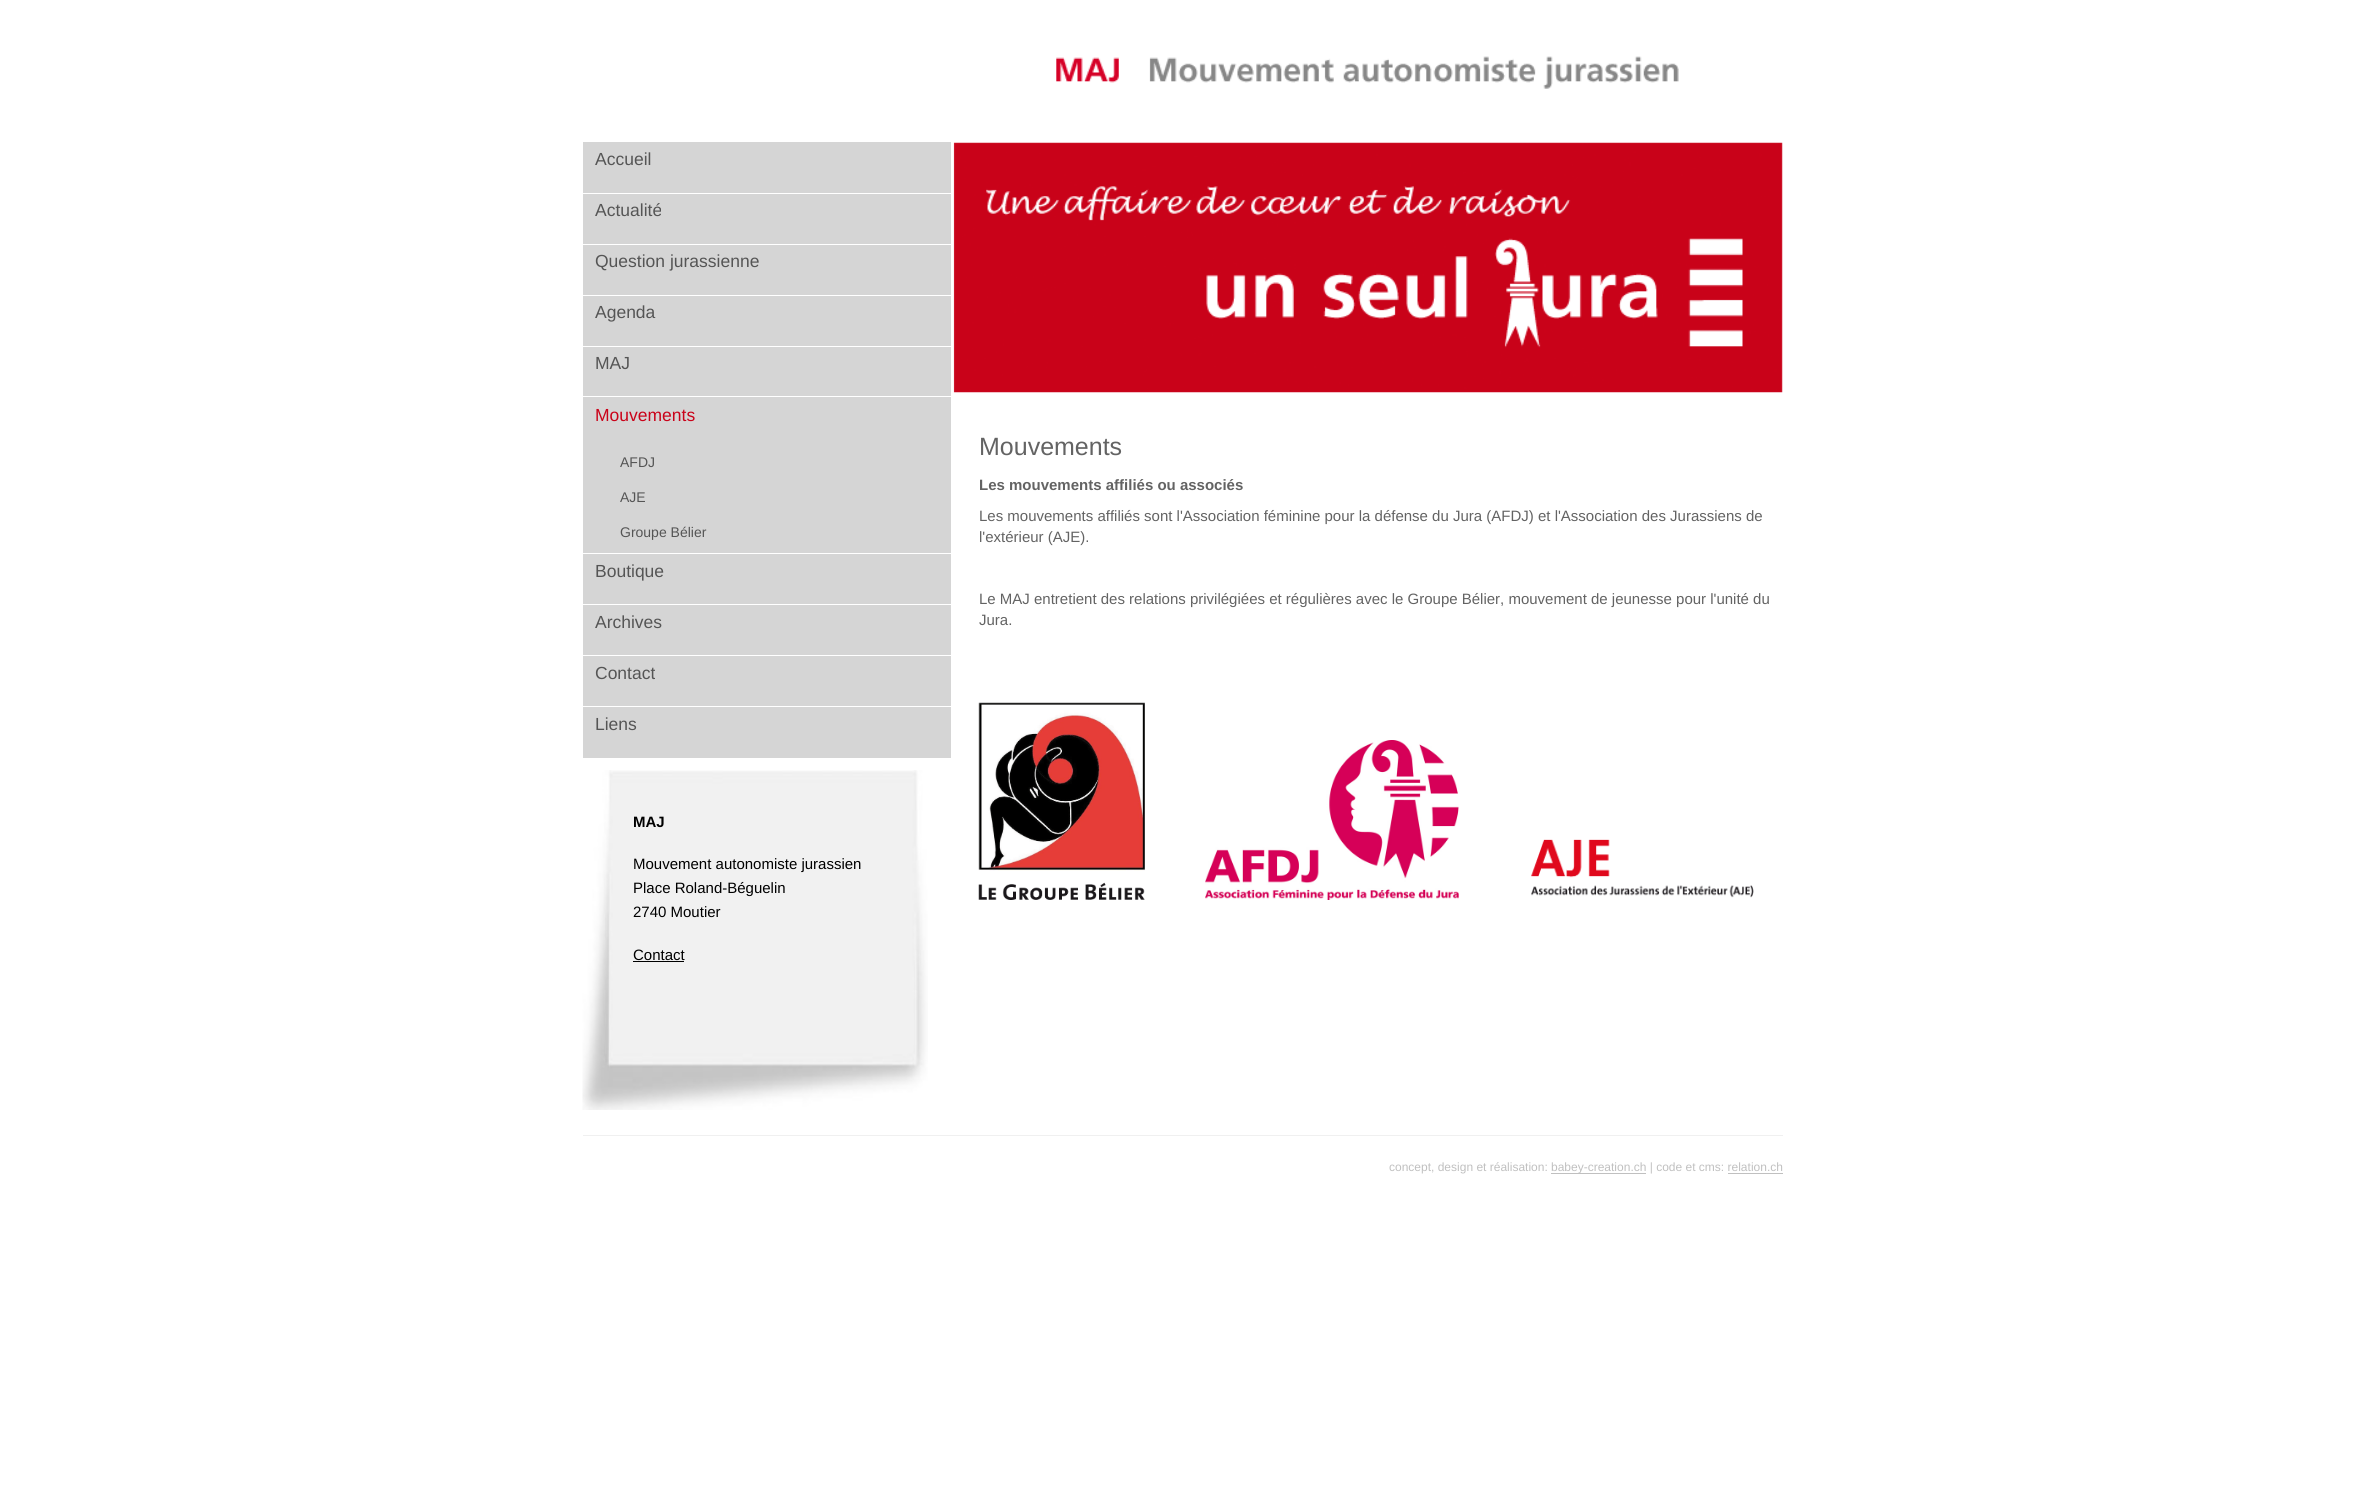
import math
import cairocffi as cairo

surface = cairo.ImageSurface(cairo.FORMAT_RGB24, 2364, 1494)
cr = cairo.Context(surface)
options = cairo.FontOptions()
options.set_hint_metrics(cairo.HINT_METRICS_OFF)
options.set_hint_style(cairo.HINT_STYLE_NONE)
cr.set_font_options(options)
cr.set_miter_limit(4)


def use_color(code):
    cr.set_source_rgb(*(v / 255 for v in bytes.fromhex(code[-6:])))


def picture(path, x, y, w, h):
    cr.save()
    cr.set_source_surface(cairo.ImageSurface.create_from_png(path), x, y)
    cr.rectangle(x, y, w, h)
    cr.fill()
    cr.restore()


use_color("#ffffff")
cr.paint()
use_color("#d5d5d5")
cr.rectangle(583, 142, 368, 616)
cr.fill()
cr.select_font_face("Liberation Sans")
cr.set_font_size(17.5)
use_color("#555555")
cr.move_to(595, 165)
cr.show_text("Accueil")
use_color("#ffffff")
cr.rectangle(583, 193, 368, 1)
cr.fill()
use_color("#555555")
cr.move_to(595, 216)
cr.show_text("Actualité")
use_color("#ffffff")
cr.rectangle(583, 244, 368, 1)
cr.fill()
use_color("#555555")
cr.move_to(595, 267)
cr.show_text("Question jurassienne")
use_color("#ffffff")
cr.rectangle(583, 295, 368, 1)
cr.fill()
use_color("#555555")
cr.move_to(595, 318)
cr.show_text("Agenda")
use_color("#ffffff")
cr.rectangle(583, 346, 368, 1)
cr.fill()
use_color("#555555")
cr.move_to(595, 369)
cr.show_text("MAJ")
use_color("#ffffff")
cr.rectangle(583, 396, 368, 1)
cr.fill()
use_color("#ca0219")
cr.move_to(595, 421)
cr.show_text("Mouvements")
cr.set_font_size(14)
use_color("#555555")
cr.move_to(620, 467)
cr.show_text("AFDJ")
cr.move_to(620, 502)
cr.show_text("AJE")
cr.move_to(620, 537)
cr.show_text("Groupe Bélier")
use_color("#ffffff")
cr.rectangle(583, 553, 368, 1)
cr.fill()
cr.set_font_size(17.5)
use_color("#555555")
cr.move_to(595, 577)
cr.show_text("Boutique")
use_color("#ffffff")
cr.rectangle(583, 604, 368, 1)
cr.fill()
use_color("#555555")
cr.move_to(595, 628)
cr.show_text("Archives")
use_color("#ffffff")
cr.rectangle(583, 655, 368, 1)
cr.fill()
use_color("#555555")
cr.move_to(595, 679)
cr.show_text("Contact")
use_color("#ffffff")
cr.rectangle(583, 706, 368, 1)
cr.fill()
use_color("#555555")
cr.move_to(595, 730)
cr.show_text("Liens")
picture("img1.png", 1056, 56, 623, 33)
picture("img2.png", 953, 142, 830, 251)
cr.set_font_size(25)
use_color("#636363")
cr.move_to(979, 455)
cr.show_text("Mouvements")
cr.select_font_face("Liberation Sans", cairo.FONT_SLANT_NORMAL, cairo.FONT_WEIGHT_BOLD)
cr.set_font_size(15)
cr.move_to(979, 490)
cr.show_text("Les mouvements affiliés ou associés")
cr.select_font_face("Liberation Sans")
cr.move_to(979, 521)
cr.show_text("Les mouvements affiliés sont l'Association féminine pour la défense du Jura (AFDJ) et l'Association des Jurassiens de")
cr.move_to(979, 542)
cr.show_text("l'extérieur (AJE).")
cr.move_to(979, 604)
cr.show_text("Le MAJ entretient des relations privilégiées et régulières avec le Groupe Bélier, mouvement de jeunesse pour l'unité du")
cr.move_to(979, 625)
cr.show_text("Jura.")
picture("img3.png", 978, 702, 167, 198)
picture("img4.png", 1205, 740, 254, 160)
picture("img5.png", 1531, 839, 223, 59)
picture("img6.png", 582, 770, 346, 340)
cr.select_font_face("Liberation Sans", cairo.FONT_SLANT_NORMAL, cairo.FONT_WEIGHT_BOLD)
use_color("#000000")
cr.move_to(633, 827)
cr.show_text("MAJ")
cr.select_font_face("Liberation Sans")
cr.move_to(633, 869)
cr.show_text("Mouvement autonomiste jurassien")
cr.move_to(633, 893)
cr.show_text("Place Roland-Béguelin")
cr.move_to(633, 917)
cr.show_text("2740 Moutier")
cr.move_to(633, 960)
cr.show_text("Contact")
cr.rectangle(633, 961, 51, 1)
cr.fill()
use_color("#f0f0f0")
cr.rectangle(583, 1135, 1200, 1)
cr.fill()
cr.set_font_size(12)
use_color("#c0c0c0")
cr.move_to(1389, 1171)
cr.show_text("concept, design et réalisation:")
cr.rectangle(1551, 1173, 95, 1)
cr.fill()
cr.move_to(1551, 1171)
cr.show_text("babey-creation.ch | code et cms: relation.ch")
cr.rectangle(1728, 1173, 55, 1)
cr.fill()
surface.write_to_png("result.png")
